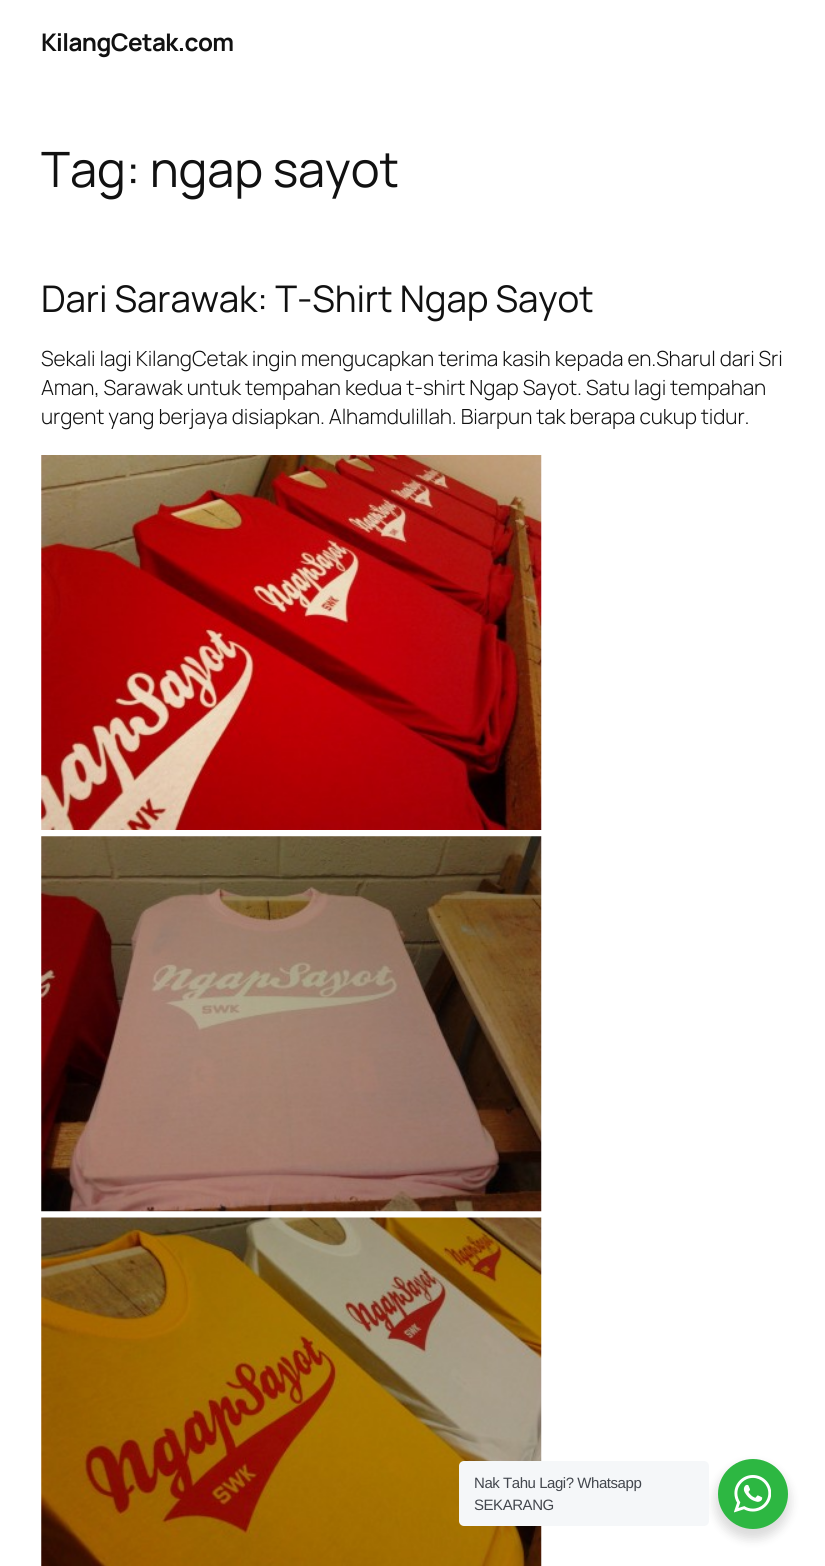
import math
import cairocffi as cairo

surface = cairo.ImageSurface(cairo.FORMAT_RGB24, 825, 1566)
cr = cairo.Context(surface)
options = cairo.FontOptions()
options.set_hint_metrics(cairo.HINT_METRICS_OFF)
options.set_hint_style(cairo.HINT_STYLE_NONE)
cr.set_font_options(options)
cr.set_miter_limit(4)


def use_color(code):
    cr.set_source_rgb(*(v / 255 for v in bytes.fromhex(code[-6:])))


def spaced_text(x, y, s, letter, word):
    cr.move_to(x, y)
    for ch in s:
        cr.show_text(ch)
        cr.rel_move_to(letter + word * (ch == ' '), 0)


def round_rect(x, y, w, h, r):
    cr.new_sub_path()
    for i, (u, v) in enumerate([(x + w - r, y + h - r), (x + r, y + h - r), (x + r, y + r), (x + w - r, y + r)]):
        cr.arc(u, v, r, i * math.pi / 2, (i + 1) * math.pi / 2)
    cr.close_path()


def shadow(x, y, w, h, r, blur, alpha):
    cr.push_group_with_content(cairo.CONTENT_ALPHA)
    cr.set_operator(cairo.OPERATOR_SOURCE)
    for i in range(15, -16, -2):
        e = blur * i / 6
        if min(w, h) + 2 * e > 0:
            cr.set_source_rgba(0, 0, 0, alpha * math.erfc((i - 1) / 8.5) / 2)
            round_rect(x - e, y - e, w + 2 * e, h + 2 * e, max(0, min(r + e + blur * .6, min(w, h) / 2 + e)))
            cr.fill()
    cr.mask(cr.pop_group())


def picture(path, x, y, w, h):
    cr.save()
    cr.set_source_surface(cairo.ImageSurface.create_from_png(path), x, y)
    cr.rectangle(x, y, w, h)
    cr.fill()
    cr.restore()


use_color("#ffffff")
cr.paint()
cr.select_font_face("Manrope", cairo.FONT_SLANT_NORMAL, cairo.FONT_WEIGHT_BOLD)
cr.set_font_size(24.25)
use_color("#111111")
spaced_text(41, 51, "KilangCetak.com", -0.6, 0)
cr.select_font_face("Manrope")
cr.set_font_size(48.75)
spaced_text(41, 187, "Tag: ngap sayot", -0.12, 0)
cr.set_font_size(36.7)
spaced_text(41, 312, "Dari Sarawak: T-Shirt Ngap Sayot", -0.12, 0)
cr.select_font_face("Manrope Light")
cr.set_font_size(20.85)
spaced_text(41, 366, "Sekali lagi KilangCetak ingin mengucapkan terima kasih kepada en.Sharul dari Sri", -0.12, 0)
spaced_text(41, 395, "Aman, Sarawak untuk tempahan kedua t-shirt Ngap Sayot. Satu lagi tempahan", -0.12, 0)
spaced_text(41, 424, "urgent yang berjaya disiapkan. Alhamdulillah. Biarpun tak berapa cukup tidur.", -0.12, 0)
picture("img1.png", 41, 455, 501, 375)
picture("img2.png", 41, 836, 501, 376)
picture("img3.png", 41, 1217, 501, 349)
use_color("#000000")
shadow(715, 1464, 75, 75, 37.5, 5, 0.14)
use_color("#f5f7f9")
round_rect(459, 1461, 250, 65, 5)
cr.fill()
cr.select_font_face("Liberation Sans")
cr.set_font_size(15)
use_color("#43474e")
spaced_text(474, 1488, "Nak Tahu Lagi? Whatsapp", -0.45, 0)
spaced_text(474, 1510, "SEKARANG", -0.45, 0)
use_color("#2db742")
cr.new_path()
cr.arc(753, 1494, 35, 0, 2 * math.pi)
cr.fill()
picture("img4.png", 734, 1475, 37, 38)
surface.write_to_png("result.png")
